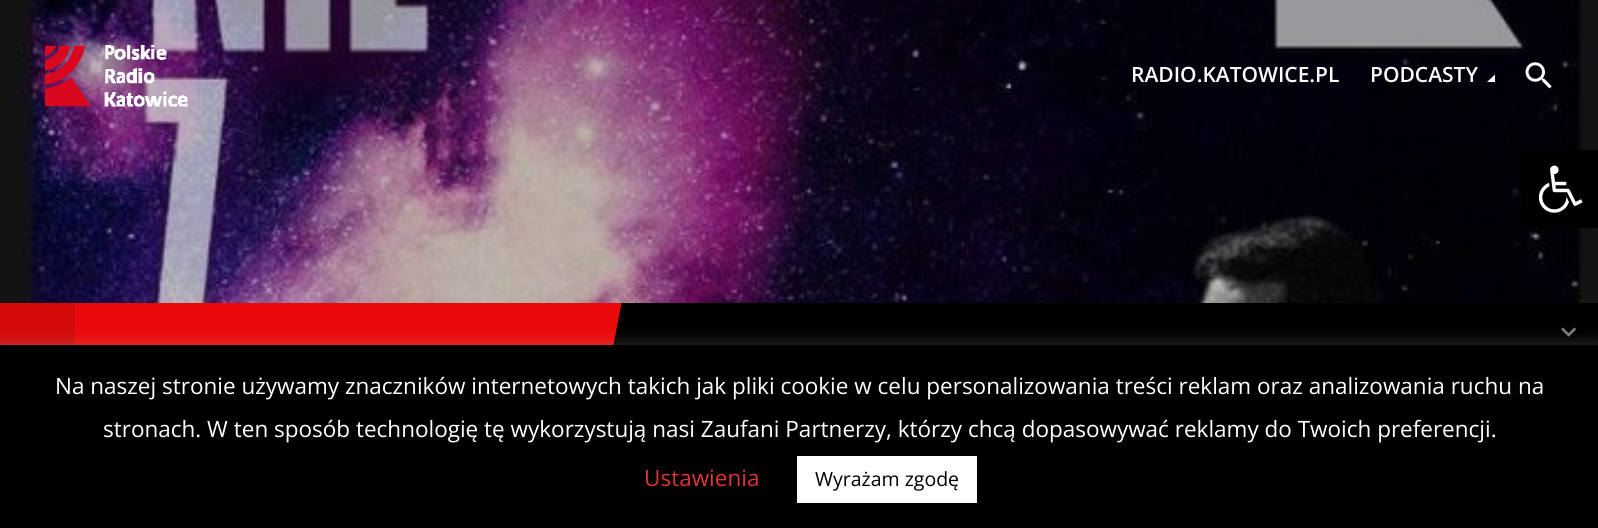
import math
import cairocffi as cairo

surface = cairo.ImageSurface(cairo.FORMAT_RGB24, 1598, 528)
cr = cairo.Context(surface)
options = cairo.FontOptions()
options.set_hint_metrics(cairo.HINT_METRICS_OFF)
options.set_hint_style(cairo.HINT_STYLE_NONE)
cr.set_font_options(options)
cr.set_miter_limit(4)


def use_color(code):
    cr.set_source_rgb(*(v / 255 for v in bytes.fromhex(code[-6:])))


def round_rect(x, y, w, h, r):
    cr.new_sub_path()
    for i, (u, v) in enumerate([(x + w - r, y + h - r), (x + r, y + h - r), (x + r, y + r), (x + w - r, y + r)]):
        cr.arc(u, v, r, i * math.pi / 2, (i + 1) * math.pi / 2)
    cr.close_path()


def shadow(x, y, w, h, r, blur, alpha):
    cr.push_group_with_content(cairo.CONTENT_ALPHA)
    cr.set_operator(cairo.OPERATOR_SOURCE)
    for i in range(15, -16, -2):
        e = blur * i / 6
        if min(w, h) + 2 * e > 0:
            cr.set_source_rgba(0, 0, 0, alpha * math.erfc((i - 1) / 8.5) / 2)
            round_rect(x - e, y - e, w + 2 * e, h + 2 * e, max(0, min(r + e + blur * .6, min(w, h) / 2 + e)))
            cr.fill()
    cr.mask(cr.pop_group())


def picture(path, x, y, w, h):
    cr.save()
    cr.set_source_surface(cairo.ImageSurface.create_from_png(path), x, y)
    cr.rectangle(x, y, w, h)
    cr.fill()
    cr.restore()


use_color("#ffffff")
cr.paint()
picture("img1.png", 0, 0, 1598, 303)
picture("img2.png", 45, 45, 143, 62)
cr.select_font_face("Open Sans SemiBold")
cr.set_font_size(21)
use_color("#ffffff")
cr.move_to(1131, 82)
cr.show_text("RADIO.KATOWICE.PL")
cr.move_to(1370, 82)
cr.show_text("PODCASTY")
cr.new_path()
cr.move_to(1495, 74.5)
cr.line_to(1495, 82)
cr.line_to(1487, 82)
cr.close_path()
cr.fill()
picture("img3.png", 1525, 62, 27, 27)
use_color("#000000")
cr.rectangle(1521, 150, 77, 78)
cr.fill()
picture("img4.png", 1538, 165, 45, 48)
cr.rectangle(613, 303, 985, 42)
cr.fill()
use_color("#eb0a0a")
cr.new_path()
cr.move_to(0, 303)
cr.line_to(0, 528)
cr.line_to(578, 528)
cr.line_to(621, 306)
cr.line_to(621, 303)
cr.close_path()
cr.fill()
use_color("#d40909")
cr.rectangle(0, 303, 75, 42)
cr.fill()
cr.select_font_face("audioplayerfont")
cr.set_font_size(30)
use_color("#808080")
cr.move_to(1554, 344)
cr.show_text("꤅")
use_color("#acabab")
shadow(0, 344, 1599, 183, 0, 7.5, 0.3)
use_color("#000000")
cr.rectangle(0, 345, 1598, 183)
cr.fill()
cr.select_font_face("Open Sans")
cr.set_font_size(22.5)
use_color("#ffffff")
cr.move_to(55, 394)
cr.show_text("Na naszej stronie używamy znaczników internetowych takich jak pliki cookie w celu personalizowania treści reklam oraz analizowania ruchu na")
cr.move_to(103, 437)
cr.show_text("stronach. W ten sposób technologię tę wykorzystują nasi Zaufani Partnerzy, którzy chcą dopasowywać reklamy do Twoich preferencji.")
use_color("#dd3333")
cr.move_to(644, 486)
cr.show_text("Ustawienia")
use_color("#ffffff")
cr.rectangle(797, 456, 180, 47)
cr.fill()
cr.set_font_size(19.5)
use_color("#000000")
cr.move_to(815, 486)
cr.show_text("Wyrażam zgodę")
surface.write_to_png("result.png")
